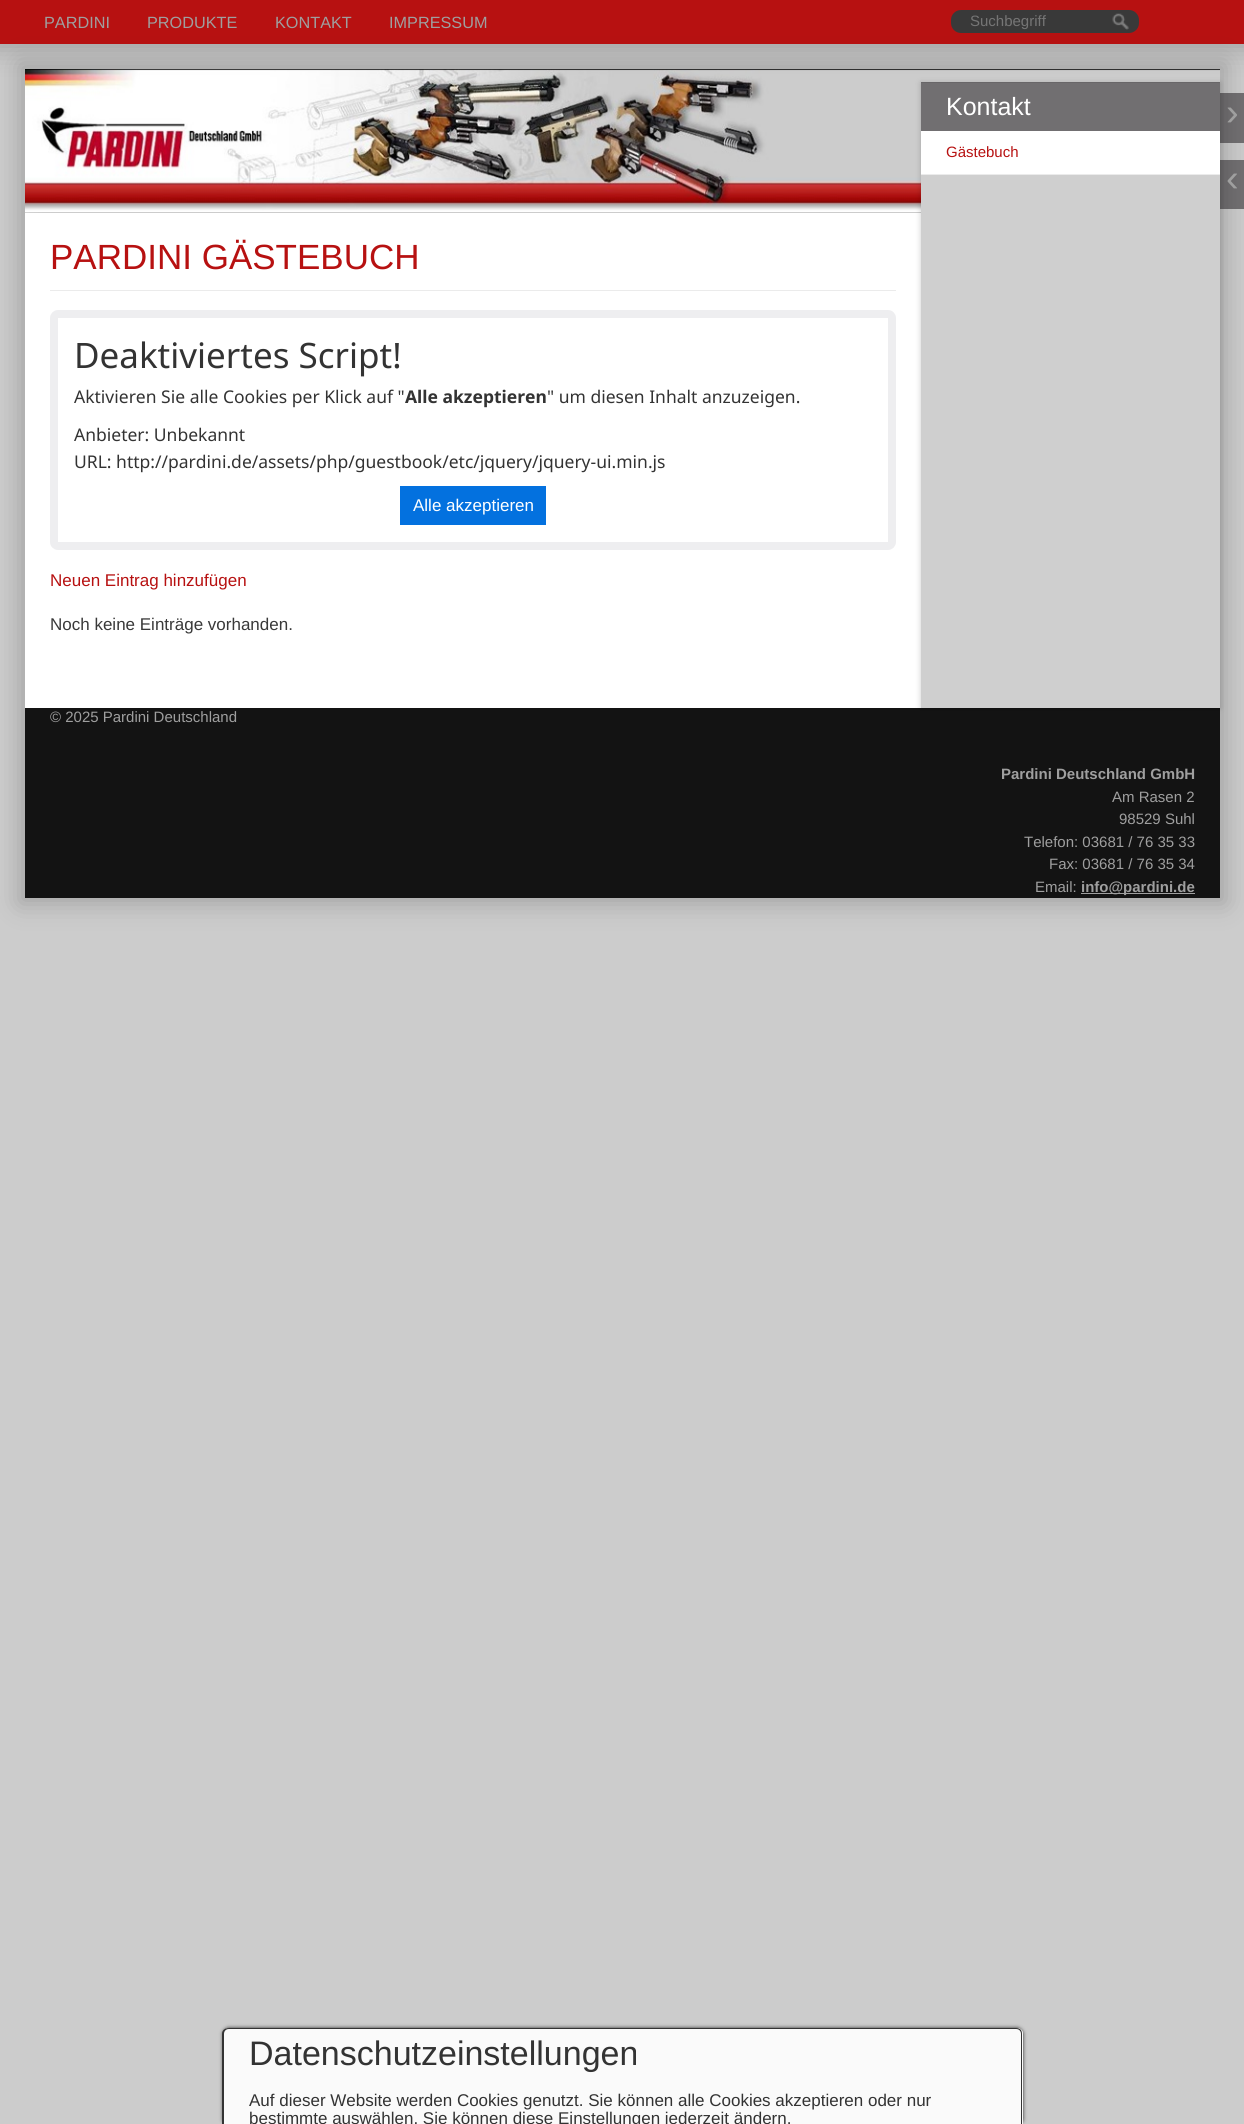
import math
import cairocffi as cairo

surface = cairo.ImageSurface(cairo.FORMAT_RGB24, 1244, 2124)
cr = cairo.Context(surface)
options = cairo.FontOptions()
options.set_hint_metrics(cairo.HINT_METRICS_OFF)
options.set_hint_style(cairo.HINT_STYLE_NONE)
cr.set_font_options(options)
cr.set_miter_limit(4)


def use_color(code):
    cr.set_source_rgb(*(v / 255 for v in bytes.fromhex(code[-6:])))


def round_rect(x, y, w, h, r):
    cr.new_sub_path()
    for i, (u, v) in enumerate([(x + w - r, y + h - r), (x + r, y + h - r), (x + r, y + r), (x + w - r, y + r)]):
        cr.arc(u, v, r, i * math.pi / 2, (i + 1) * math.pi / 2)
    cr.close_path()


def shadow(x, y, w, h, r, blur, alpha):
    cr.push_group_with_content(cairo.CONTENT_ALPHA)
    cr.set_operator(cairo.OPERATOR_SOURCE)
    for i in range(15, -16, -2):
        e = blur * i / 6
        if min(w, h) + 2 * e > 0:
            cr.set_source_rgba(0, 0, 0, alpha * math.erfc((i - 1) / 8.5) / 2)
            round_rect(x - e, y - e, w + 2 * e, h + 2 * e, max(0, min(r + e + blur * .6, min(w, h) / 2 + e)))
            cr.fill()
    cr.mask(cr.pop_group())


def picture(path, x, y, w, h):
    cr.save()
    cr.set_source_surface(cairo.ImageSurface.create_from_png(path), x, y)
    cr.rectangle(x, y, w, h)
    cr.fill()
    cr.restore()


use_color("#cccccc")
cr.paint()
use_color("#000000")
shadow(-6, -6, 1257, 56, 0, 12.5, 0.2)
use_color("#b71111")
cr.rectangle(0, 0, 1244, 44)
cr.fill()
use_color("#000000")
shadow(19, 63, 1207, 841, 0, 12.5, 0.2)
cr.select_font_face("Liberation Sans")
cr.set_font_size(16.25)
use_color("#9f9f9f")
cr.move_to(44, 28)
cr.show_text("PARDINI")
cr.move_to(147, 28)
cr.show_text("PRODUKTE")
cr.move_to(275, 28)
cr.show_text("KONTAKT")
cr.move_to(389, 28)
cr.show_text("IMPRESSUM")
use_color("#393939")
round_rect(951, 10, 188, 23, 10)
cr.fill()
cr.set_font_size(15)
use_color("#757575")
cr.move_to(970, 26)
cr.show_text("Suchbegriff")
picture("img1.png", 1112, 13, 17, 17)
use_color("#ffffff")
cr.rectangle(25, 213, 896, 495)
cr.fill()
picture("img2.png", 25, 69, 1195, 144)
cr.set_source_rgba(0.086, 0.078, 0.086, 0.5)
cr.rectangle(1220, 93, 24, 50)
cr.fill()
cr.rectangle(1220, 160, 24, 49)
cr.fill()
use_color("#131313")
cr.rectangle(25, 708, 1195, 190)
cr.fill()
cr.save()
cr.set_fill_rule(cairo.FILL_RULE_EVEN_ODD)
cr.new_path()
cr.move_to(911, 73)
cr.line_to(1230, 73)
cr.line_to(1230, 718)
cr.line_to(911, 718)
cr.close_path()
cr.move_to(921, 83)
cr.line_to(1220, 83)
cr.line_to(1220, 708)
cr.line_to(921, 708)
cr.close_path()
cr.clip()
use_color("#000000")
shadow(921, 83, 299, 625, 0, 3, 0.2)
cr.restore()
cr.set_source_rgba(0.086, 0.078, 0.086, 0.5)
cr.rectangle(921, 82, 299, 49)
cr.fill()
cr.set_font_size(25)
use_color("#ffffff")
cr.move_to(946, 115)
cr.show_text("Kontakt")
use_color("#cfcfcf")
cr.rectangle(921, 175, 299, 533)
cr.fill()
use_color("#ebebeb")
cr.rectangle(921, 174, 299, 1)
cr.fill()
use_color("#ffffff")
cr.rectangle(921, 131, 299, 43)
cr.fill()
cr.set_font_size(15)
use_color("#b71111")
cr.move_to(946, 157)
cr.show_text("Gästebuch")
use_color("#ebebeb")
cr.rectangle(50, 290, 846, 1)
cr.fill()
cr.set_font_size(35)
use_color("#b71111")
cr.move_to(50, 269)
cr.show_text("PARDINI GÄSTEBUCH")
round_rect(54, 314, 838, 232, 4)
use_color("#eeeef0")
cr.set_line_width(8)
cr.stroke()
cr.select_font_face("Noto Sans")
use_color("#333333")
cr.move_to(74, 368)
cr.show_text("Deaktiviertes Script!")
cr.set_font_size(17.5)
cr.move_to(74, 403)
cr.show_text("Aktivieren Sie alle Cookies per Klick auf \"")
cr.select_font_face("Noto Sans", cairo.FONT_SLANT_NORMAL, cairo.FONT_WEIGHT_BOLD)
cr.move_to(405, 403)
cr.show_text("Alle akzeptieren")
cr.select_font_face("Noto Sans")
cr.move_to(547, 403)
cr.show_text("\" um diesen Inhalt anzuzeigen.")
cr.move_to(74, 441)
cr.show_text("Anbieter: Unbekannt")
cr.move_to(74, 468)
cr.show_text("URL: http://pardini.de/assets/php/guestbook/etc/jquery/jquery-ui.min.js")
use_color("#0371df")
cr.rectangle(400, 486, 146, 39)
cr.fill()
cr.select_font_face("Liberation Sans")
cr.set_font_size(17)
use_color("#ffffff")
cr.move_to(413, 511)
cr.show_text("Alle akzeptieren")
use_color("#b71111")
cr.move_to(50, 586)
cr.show_text("Neuen Eintrag hinzufügen")
use_color("#393939")
cr.move_to(50, 630)
cr.show_text("Noch keine Einträge vorhanden.")
cr.set_font_size(38)
use_color("#9f9f9f")
cr.move_to(1226, 125)
cr.show_text("›")
cr.move_to(1226, 191)
cr.show_text("‹")
cr.set_font_size(15)
cr.move_to(50, 722)
cr.show_text("© 2025 Pardini Deutschland")
cr.select_font_face("Liberation Sans", cairo.FONT_SLANT_NORMAL, cairo.FONT_WEIGHT_BOLD)
cr.move_to(1001, 779)
cr.show_text("Pardini Deutschland GmbH")
cr.select_font_face("Liberation Sans")
cr.move_to(1112, 802)
cr.show_text("Am Rasen 2")
cr.move_to(1119, 824)
cr.show_text("98529 Suhl")
cr.move_to(1024, 847)
cr.show_text("Telefon: 03681 / 76 35 33")
cr.move_to(1049, 869)
cr.show_text("Fax: 03681 / 76 35 34")
cr.move_to(1035, 892)
cr.show_text("Email:")
cr.rectangle(1081, 893, 114, 1)
cr.fill()
cr.select_font_face("Liberation Sans", cairo.FONT_SLANT_NORMAL, cairo.FONT_WEIGHT_BOLD)
cr.move_to(1081, 892)
cr.show_text("info@pardini.de")
cr.save()
cr.set_fill_rule(cairo.FILL_RULE_EVEN_ODD)
cr.new_path()
cr.move_to(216, 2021)
cr.line_to(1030, 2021)
cr.line_to(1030, 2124)
cr.line_to(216, 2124)
cr.close_path()
cr.move_to(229, 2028)
cr.line_to(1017, 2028)
cr.curve_to(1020.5, 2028, 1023, 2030.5, 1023, 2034)
cr.line_to(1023, 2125)
cr.line_to(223, 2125)
cr.line_to(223, 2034)
cr.curve_to(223, 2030.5, 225.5, 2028, 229, 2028)
cr.close_path()
cr.clip()
use_color("#000000")
shadow(223, 2028, 800, 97, 6, 2, 0.8)
cr.restore()
cr.set_source_rgba(1, 1, 1, 0.9)
cr.new_path()
cr.move_to(229, 2028)
cr.line_to(1017, 2028)
cr.curve_to(1020.5, 2028, 1023, 2030.5, 1023, 2034)
cr.line_to(1023, 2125)
cr.line_to(223, 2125)
cr.line_to(223, 2034)
cr.curve_to(223, 2030.5, 225.5, 2028, 229, 2028)
cr.close_path()
cr.fill()
use_color("#333333")
cr.set_fill_rule(cairo.FILL_RULE_EVEN_ODD)
cr.new_path()
cr.move_to(229, 2028)
cr.line_to(1016, 2028)
cr.curve_to(1020, 2028, 1022, 2030, 1022, 2034)
cr.line_to(1022, 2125)
cr.line_to(222, 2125)
cr.line_to(222, 2034)
cr.curve_to(222, 2030, 225, 2028, 229, 2028)
cr.close_path()
cr.move_to(229, 2029)
cr.line_to(1016, 2029)
cr.curve_to(1019, 2029, 1021, 2031, 1021, 2034)
cr.line_to(1021, 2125)
cr.line_to(224, 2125)
cr.line_to(224, 2034)
cr.curve_to(224, 2031, 226, 2029, 229, 2029)
cr.close_path()
cr.fill()
cr.select_font_face("Liberation Sans")
cr.set_font_size(34)
cr.move_to(249, 2065)
cr.show_text("Datenschutzeinstellungen")
cr.set_font_size(17)
cr.move_to(249, 2106)
cr.show_text("Auf dieser Website werden Cookies genutzt. Sie können alle Cookies akzeptieren oder nur")
cr.move_to(249, 2124)
cr.show_text("bestimmte auswählen. Sie können diese Einstellungen jederzeit ändern.")
surface.write_to_png("result.png")
